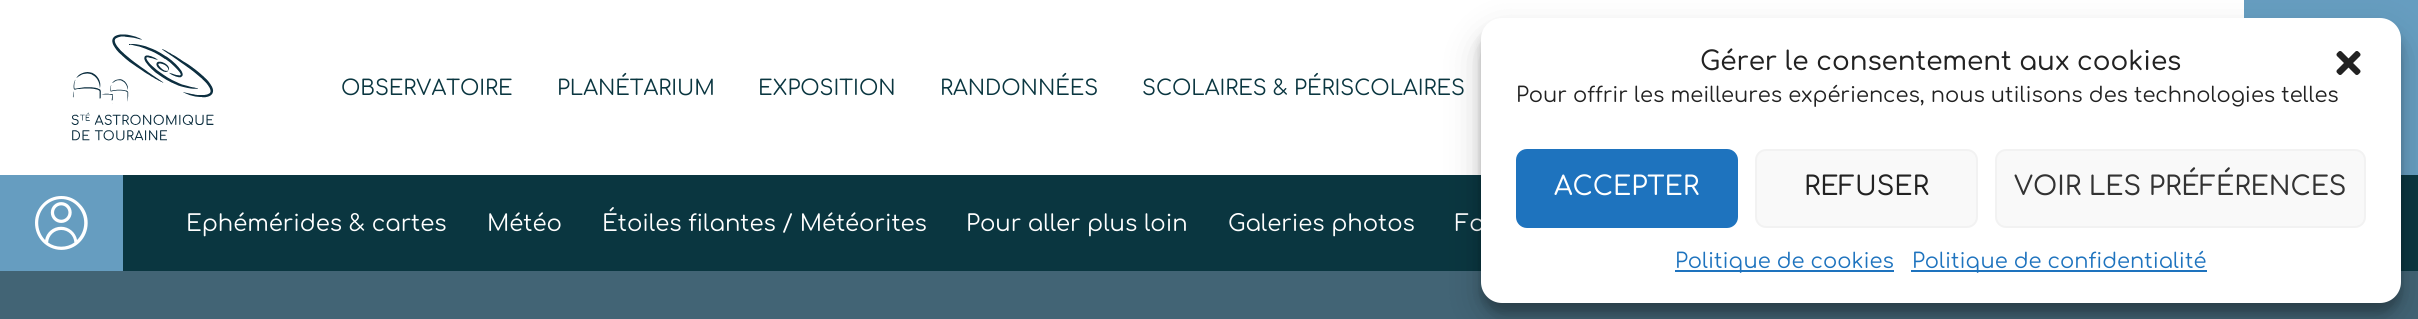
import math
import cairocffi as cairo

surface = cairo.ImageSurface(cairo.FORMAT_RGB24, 2418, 319)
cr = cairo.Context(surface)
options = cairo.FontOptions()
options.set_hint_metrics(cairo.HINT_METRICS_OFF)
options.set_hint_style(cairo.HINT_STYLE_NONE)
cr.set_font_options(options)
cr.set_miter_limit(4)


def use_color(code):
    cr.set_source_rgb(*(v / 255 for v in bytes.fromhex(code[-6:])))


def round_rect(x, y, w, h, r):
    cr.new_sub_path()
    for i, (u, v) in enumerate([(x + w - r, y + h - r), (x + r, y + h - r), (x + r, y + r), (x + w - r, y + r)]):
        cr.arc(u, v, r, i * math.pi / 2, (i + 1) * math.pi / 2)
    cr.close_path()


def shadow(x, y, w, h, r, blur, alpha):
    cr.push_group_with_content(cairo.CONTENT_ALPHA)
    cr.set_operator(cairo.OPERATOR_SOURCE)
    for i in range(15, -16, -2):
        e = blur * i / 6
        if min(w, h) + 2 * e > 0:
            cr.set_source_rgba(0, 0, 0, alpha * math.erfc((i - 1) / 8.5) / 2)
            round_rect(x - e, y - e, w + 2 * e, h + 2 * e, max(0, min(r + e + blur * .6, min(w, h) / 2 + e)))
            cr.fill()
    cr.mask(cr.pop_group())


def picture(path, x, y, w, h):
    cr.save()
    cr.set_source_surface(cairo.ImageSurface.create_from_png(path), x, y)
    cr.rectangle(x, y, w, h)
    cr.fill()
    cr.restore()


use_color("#426475")
cr.paint()
use_color("#ffffff")
cr.rectangle(0, 0, 2244, 175)
cr.fill()
picture("img1.png", 71, 34, 143, 107)
cr.select_font_face("Comfortaa")
cr.set_font_size(21)
use_color("#0a3640")
cr.move_to(341, 95)
cr.show_text("OBSERVATOIRE")
cr.move_to(557, 95)
cr.show_text("PLANÉTARIUM")
cr.move_to(758, 95)
cr.show_text("EXPOSITION")
cr.move_to(940, 95)
cr.show_text("RANDONNÉES")
cr.move_to(1142, 95)
cr.show_text("SCOLAIRES & PÉRISCOLAIRES")
use_color("#669dc0")
cr.rectangle(2244, 0, 174, 175)
cr.fill()
use_color("#0a3640")
cr.rectangle(123, 175, 2295, 96)
cr.fill()
use_color("#669dc0")
cr.rectangle(0, 175, 123, 96)
cr.fill()
picture("img2.png", 35, 196, 53, 54)
cr.set_font_size(22.75)
use_color("#ffffff")
cr.move_to(186, 231)
cr.show_text("Ephémérides & cartes")
cr.move_to(487, 231)
cr.show_text("Météo")
cr.move_to(602, 231)
cr.show_text("Étoiles filantes / Météorites")
cr.move_to(966, 231)
cr.show_text("Pour aller plus loin")
cr.move_to(1228, 231)
cr.show_text("Galeries photos")
cr.move_to(1455, 231)
cr.show_text("Fo")
use_color("#000000")
shadow(1481, 28, 920, 285, 21, 5, 0.23)
shadow(1481, 35, 920, 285, 21, 17.5, 0.19)
use_color("#ffffff")
round_rect(1481, 18, 920, 285, 21)
cr.fill()
cr.select_font_face("Comfortaa Medium")
cr.set_font_size(26.25)
use_color("#222222")
cr.move_to(1700, 70)
cr.show_text("Gérer le consentement aux cookies")
picture("img3.png", 2336, 51, 25, 24)
cr.select_font_face("Comfortaa")
cr.set_font_size(21)
cr.move_to(1516, 102)
cr.show_text("Pour offrir les meilleures expériences, nous utilisons des technologies telles")
use_color("#1e73be")
round_rect(1517, 150, 220, 77, 10)
cr.fill_preserve()
cr.stroke()
cr.select_font_face("Comfortaa Medium")
cr.set_font_size(26.25)
use_color("#ffffff")
cr.move_to(1554, 195)
cr.show_text("ACCEPTER")
use_color("#f9f9f9")
round_rect(1756, 150, 221, 77, 10)
cr.fill_preserve()
use_color("#f2f2f2")
cr.stroke()
use_color("#222222")
cr.move_to(1804, 195)
cr.show_text("REFUSER")
use_color("#f9f9f9")
round_rect(1996, 150, 369, 77, 10)
cr.fill_preserve()
use_color("#f2f2f2")
cr.stroke()
use_color("#333333")
cr.move_to(2014, 195)
cr.show_text("VOIR LES PRÉFÉRENCES")
use_color("#1e73be")
cr.rectangle(1675, 270, 219, 2)
cr.fill()
cr.select_font_face("Comfortaa")
cr.set_font_size(21)
cr.move_to(1675, 268)
cr.show_text("Politique de cookies")
cr.rectangle(1911, 270, 296, 2)
cr.fill()
cr.move_to(1912, 268)
cr.show_text("Politique de confidentialité")
surface.write_to_png("result.png")
